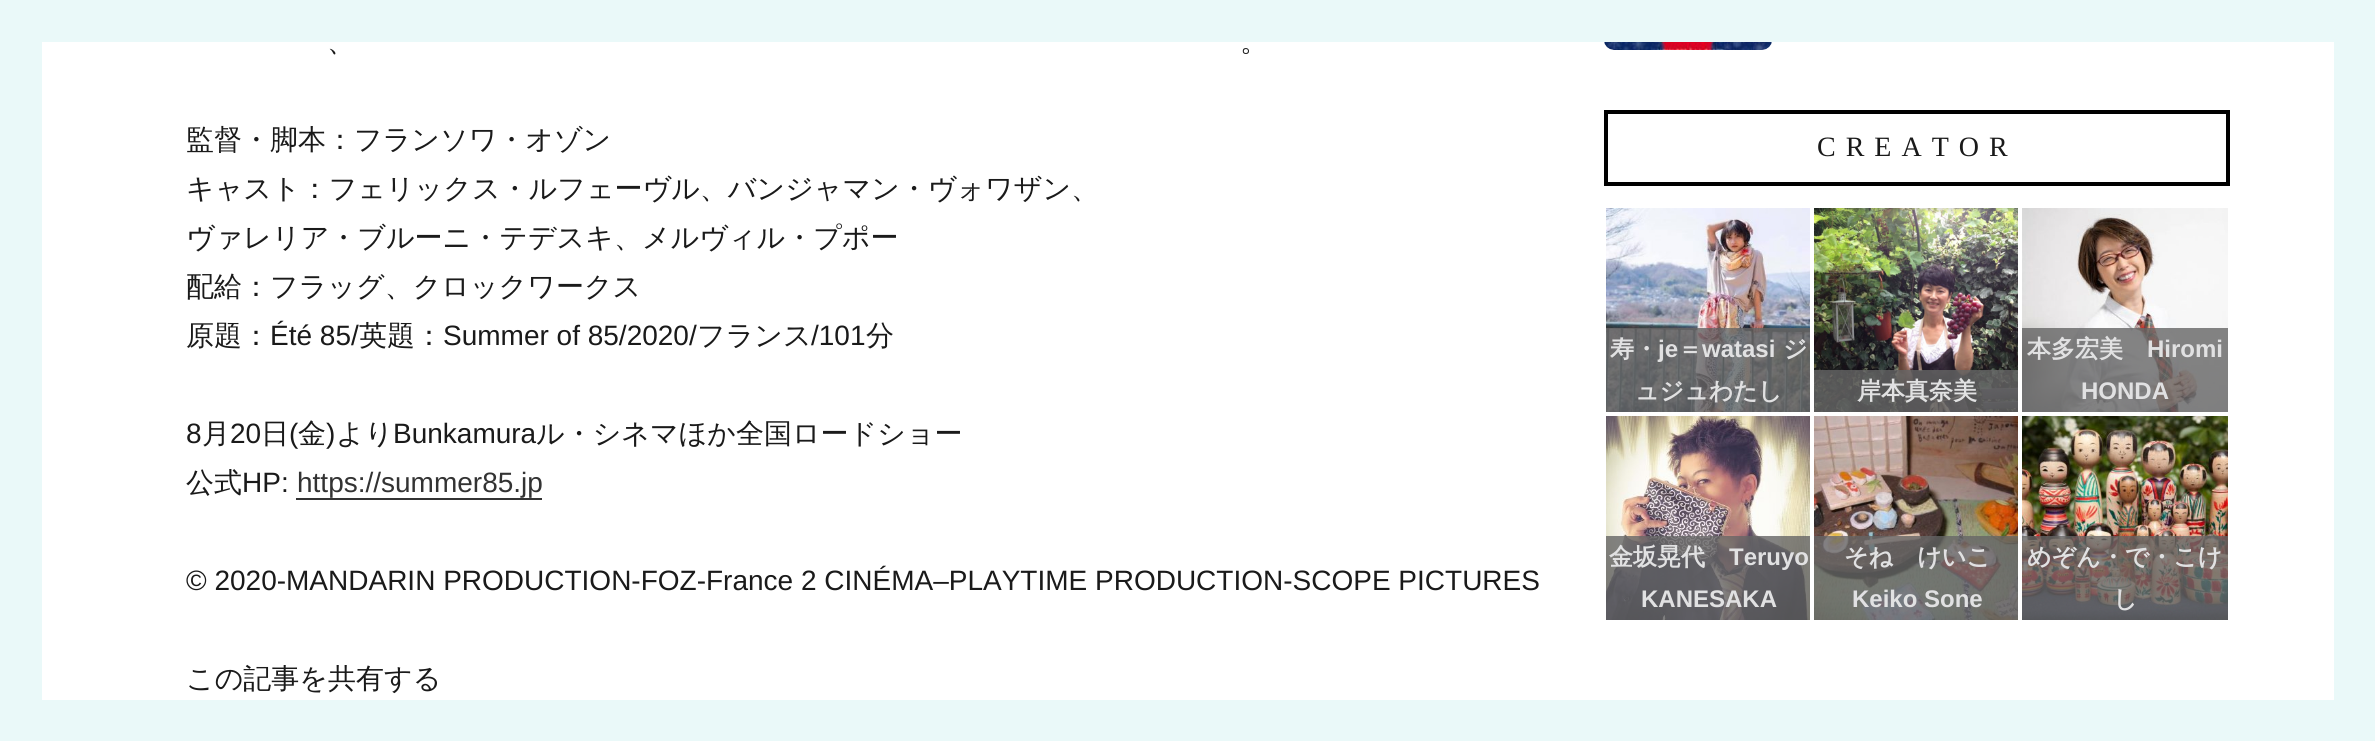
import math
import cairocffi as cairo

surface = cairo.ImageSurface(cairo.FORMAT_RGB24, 2375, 741)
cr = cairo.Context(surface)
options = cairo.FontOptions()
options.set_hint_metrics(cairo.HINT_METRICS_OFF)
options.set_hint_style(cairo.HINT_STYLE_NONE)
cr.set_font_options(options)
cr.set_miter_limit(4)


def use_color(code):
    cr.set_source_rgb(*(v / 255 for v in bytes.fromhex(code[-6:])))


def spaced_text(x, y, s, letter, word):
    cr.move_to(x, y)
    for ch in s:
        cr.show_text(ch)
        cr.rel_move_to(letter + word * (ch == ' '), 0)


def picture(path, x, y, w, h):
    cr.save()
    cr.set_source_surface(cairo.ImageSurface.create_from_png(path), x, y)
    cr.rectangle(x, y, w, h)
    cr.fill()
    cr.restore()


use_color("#eaf9f9")
cr.paint()
use_color("#ffffff")
cr.rectangle(42, 42, 2292, 658)
cr.fill()
cr.select_font_face("WenQuanYi Zen Hei Medium")
cr.set_font_size(28)
use_color("#1a1a1a")
cr.move_to(327, 51)
cr.show_text("、")
cr.move_to(1240, 51)
cr.show_text("。")
cr.move_to(186, 149)
cr.show_text("監督・脚本：フランソワ・オゾン")
cr.move_to(186, 198)
cr.show_text("キャスト：フェリックス・ルフェーヴル、バンジャマン・ヴォワザン、")
cr.move_to(186, 247)
cr.show_text("ヴァレリア・ブルーニ・テデスキ、メルヴィル・プポー")
cr.move_to(186, 296)
cr.show_text("配給：フラッグ、クロックワークス")
cr.move_to(186, 345)
cr.show_text("原題：")
cr.select_font_face("Liberation Sans")
cr.move_to(270, 345)
cr.show_text("Été 85/")
cr.select_font_face("WenQuanYi Zen Hei Medium")
cr.move_to(359, 345)
cr.show_text("英題：")
cr.select_font_face("Liberation Sans")
cr.move_to(443, 345)
cr.show_text("Summer of 85/2020/")
cr.select_font_face("WenQuanYi Zen Hei Medium")
cr.move_to(697, 345)
cr.show_text("フランス")
cr.select_font_face("Liberation Sans")
cr.move_to(811, 345)
cr.show_text("/101")
cr.select_font_face("WenQuanYi Zen Hei Medium")
cr.move_to(866, 345)
cr.show_text("分")
cr.select_font_face("Liberation Sans")
cr.move_to(186, 443)
cr.show_text("8")
cr.select_font_face("WenQuanYi Zen Hei Medium")
cr.move_to(202, 443)
cr.show_text("月")
cr.select_font_face("Liberation Sans")
cr.move_to(230, 443)
cr.show_text("20")
cr.select_font_face("WenQuanYi Zen Hei Medium")
cr.move_to(261, 443)
cr.show_text("日")
cr.select_font_face("Liberation Sans")
cr.move_to(289, 443)
cr.show_text("(")
cr.select_font_face("WenQuanYi Zen Hei Medium")
cr.move_to(298, 443)
cr.show_text("金")
cr.select_font_face("Liberation Sans")
cr.move_to(326, 443)
cr.show_text(")")
cr.select_font_face("WenQuanYi Zen Hei Medium")
cr.move_to(336, 443)
cr.show_text("より")
cr.select_font_face("Liberation Sans")
cr.move_to(393, 443)
cr.show_text("Bunkamura")
cr.select_font_face("WenQuanYi Zen Hei Medium")
cr.move_to(536, 443)
cr.show_text("ル・シネマほか全国ロードショー")
cr.move_to(186, 492)
cr.show_text("公式")
cr.select_font_face("Liberation Sans")
cr.move_to(242, 492)
cr.show_text("HP:")
use_color("#333333")
cr.move_to(297, 492)
cr.show_text("https://summer85.jp")
cr.rectangle(296, 498, 246, 2)
cr.fill()
use_color("#1a1a1a")
cr.move_to(186, 590)
cr.show_text("© 2020-MANDARIN PRODUCTION-FOZ-France 2 CINÉMA–PLAYTIME PRODUCTION-SCOPE PICTURES")
cr.select_font_face("WenQuanYi Zen Hei Medium")
cr.move_to(186, 688)
cr.show_text("この記事を共有する")
picture("img1.png", 1604, 42, 168, 8)
cr.rectangle(1606, 112, 622, 72)
use_color("#000000")
cr.set_line_width(4)
cr.stroke()
cr.select_font_face("Liberation Serif")
use_color("#1a1a1a")
spaced_text(1817, 156, "CREATOR", 10, 0)
picture("img2.png", 1606, 208, 204, 204)
cr.set_source_rgba(0.4, 0.4, 0.4, 0.8)
cr.rectangle(1606, 328, 204, 84)
cr.fill()
cr.select_font_face("WenQuanYi Zen Hei", cairo.FONT_SLANT_NORMAL, cairo.FONT_WEIGHT_BOLD)
cr.set_font_size(24)
use_color("#e1e1e2")
cr.move_to(1610, 357)
cr.show_text("寿・")
cr.select_font_face("Liberation Sans", cairo.FONT_SLANT_NORMAL, cairo.FONT_WEIGHT_BOLD)
cr.move_to(1658, 357)
cr.show_text("je")
cr.select_font_face("WenQuanYi Zen Hei", cairo.FONT_SLANT_NORMAL, cairo.FONT_WEIGHT_BOLD)
cr.move_to(1678, 357)
cr.show_text("＝")
cr.select_font_face("Liberation Sans", cairo.FONT_SLANT_NORMAL, cairo.FONT_WEIGHT_BOLD)
cr.move_to(1702, 357)
cr.show_text("watasi")
cr.select_font_face("WenQuanYi Zen Hei", cairo.FONT_SLANT_NORMAL, cairo.FONT_WEIGHT_BOLD)
cr.move_to(1783, 357)
cr.show_text("ジ")
cr.move_to(1635, 399)
cr.show_text("ュジュわたし")
picture("img3.png", 1814, 208, 204, 204)
cr.set_source_rgba(0.4, 0.4, 0.4, 0.8)
cr.rectangle(1814, 370, 204, 42)
cr.fill()
use_color("#e1e1e2")
cr.move_to(1857, 399)
cr.show_text("岸本真奈美")
picture("img4.png", 2022, 208, 206, 204)
cr.set_source_rgba(0.4, 0.4, 0.4, 0.8)
cr.rectangle(2022, 328, 206, 84)
cr.fill()
use_color("#e1e1e2")
cr.move_to(2027, 357)
cr.show_text("本多宏美")
cr.select_font_face("Liberation Sans", cairo.FONT_SLANT_NORMAL, cairo.FONT_WEIGHT_BOLD)
cr.move_to(2147, 357)
cr.show_text("Hiromi")
cr.move_to(2081, 399)
cr.show_text("HONDA")
picture("img5.png", 1606, 416, 204, 204)
cr.set_source_rgba(0.4, 0.4, 0.4, 0.8)
cr.rectangle(1606, 536, 204, 84)
cr.fill()
cr.select_font_face("WenQuanYi Zen Hei", cairo.FONT_SLANT_NORMAL, cairo.FONT_WEIGHT_BOLD)
use_color("#e1e1e2")
cr.move_to(1609, 565)
cr.show_text("金坂晃代")
cr.select_font_face("Liberation Sans", cairo.FONT_SLANT_NORMAL, cairo.FONT_WEIGHT_BOLD)
cr.move_to(1729, 565)
cr.show_text("Teruyo")
cr.move_to(1641, 607)
cr.show_text("KANESAKA")
picture("img6.png", 1814, 416, 204, 204)
cr.set_source_rgba(0.4, 0.4, 0.4, 0.8)
cr.rectangle(1814, 536, 204, 84)
cr.fill()
cr.select_font_face("WenQuanYi Zen Hei", cairo.FONT_SLANT_NORMAL, cairo.FONT_WEIGHT_BOLD)
use_color("#e1e1e2")
cr.move_to(1844, 565)
cr.show_text("そね　けいこ")
cr.select_font_face("Liberation Sans", cairo.FONT_SLANT_NORMAL, cairo.FONT_WEIGHT_BOLD)
cr.move_to(1852, 607)
cr.show_text("Keiko Sone")
picture("img7.png", 2022, 416, 206, 204)
cr.set_source_rgba(0.4, 0.4, 0.4, 0.8)
cr.rectangle(2022, 536, 206, 84)
cr.fill()
cr.select_font_face("WenQuanYi Zen Hei", cairo.FONT_SLANT_NORMAL, cairo.FONT_WEIGHT_BOLD)
use_color("#e1e1e2")
cr.move_to(2027, 565)
cr.show_text("めぞん・で・こけ")
cr.move_to(2113, 607)
cr.show_text("し")
surface.write_to_png("result.png")
